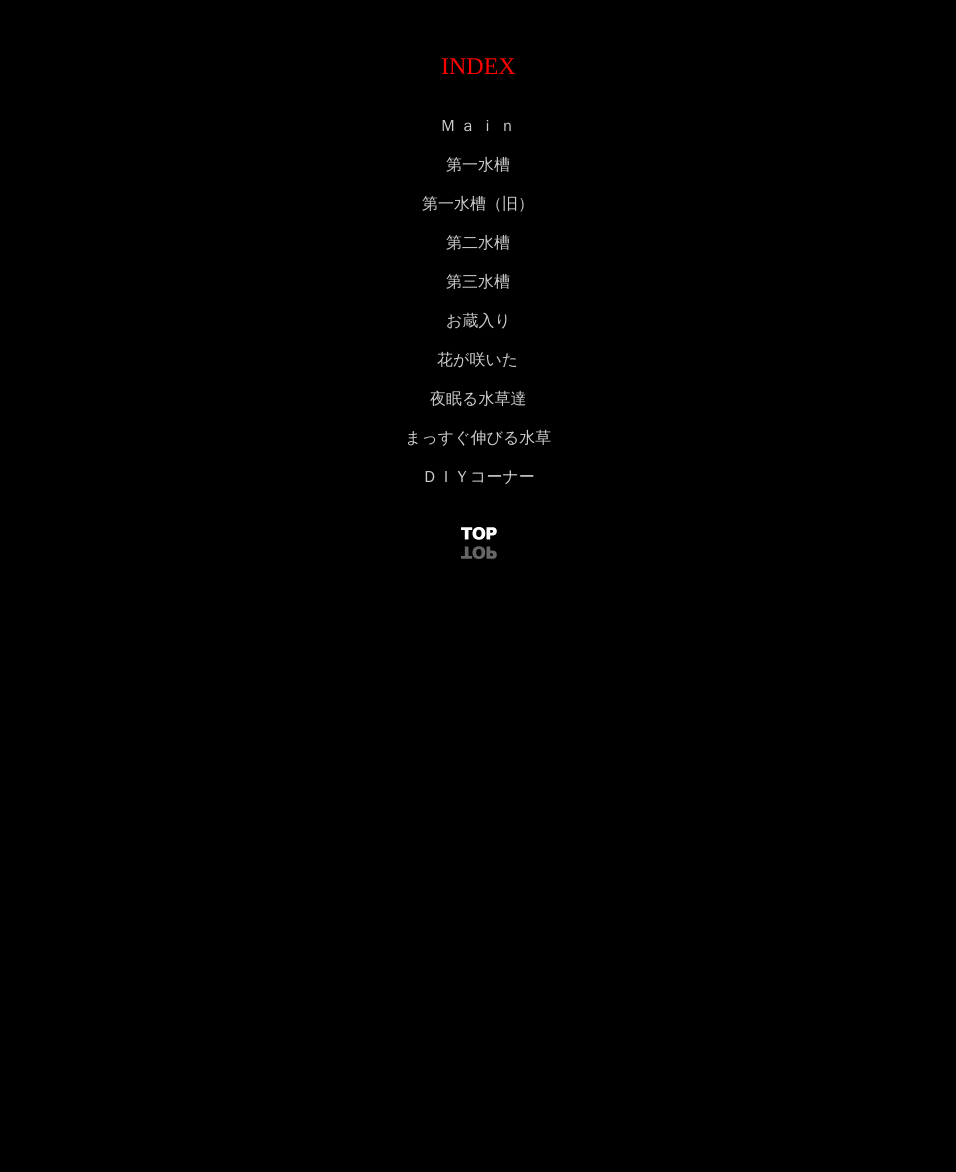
import math
import cairocffi as cairo

surface = cairo.ImageSurface(cairo.FORMAT_RGB24, 956, 1172)
cr = cairo.Context(surface)
options = cairo.FontOptions()
options.set_hint_metrics(cairo.HINT_METRICS_OFF)
options.set_hint_style(cairo.HINT_STYLE_NONE)
cr.set_font_options(options)
cr.set_miter_limit(4)


def use_color(code):
    cr.set_source_rgb(*(v / 255 for v in bytes.fromhex(code[-6:])))


def spaced_text(x, y, s, letter, word):
    cr.move_to(x, y)
    for ch in s:
        cr.show_text(ch)
        cr.rel_move_to(letter + word * (ch == ' '), 0)


def picture(path, x, y, w, h):
    cr.save()
    cr.set_source_surface(cairo.ImageSurface.create_from_png(path), x, y)
    cr.rectangle(x, y, w, h)
    cr.fill()
    cr.restore()


use_color("#000000")
cr.paint()
cr.select_font_face("Liberation Serif")
cr.set_font_size(24)
use_color("#ff0000")
cr.move_to(441, 74)
cr.show_text("INDEX")
cr.select_font_face("WenQuanYi Zen Hei Medium")
cr.set_font_size(16)
use_color("#cccccc")
spaced_text(440, 131, "Ｍ ａ ｉ ｎ", 0, -1)
cr.move_to(446, 170)
cr.show_text("第一水槽")
cr.move_to(422, 209)
cr.show_text("第一水槽（旧）")
cr.move_to(446, 248)
cr.show_text("第二水槽")
cr.move_to(446, 287)
cr.show_text("第三水槽")
cr.move_to(446, 326)
cr.show_text("お蔵入り")
cr.move_to(437, 365)
cr.show_text("花が咲いた")
cr.move_to(430, 404)
cr.show_text("夜眠る水草達")
cr.move_to(405, 443)
cr.show_text("まっすぐ伸びる水草")
cr.move_to(422, 482)
cr.show_text("ＤＩＹコーナー")
picture("img1.png", 461, 527, 36, 32)
surface.write_to_png("result.png")
